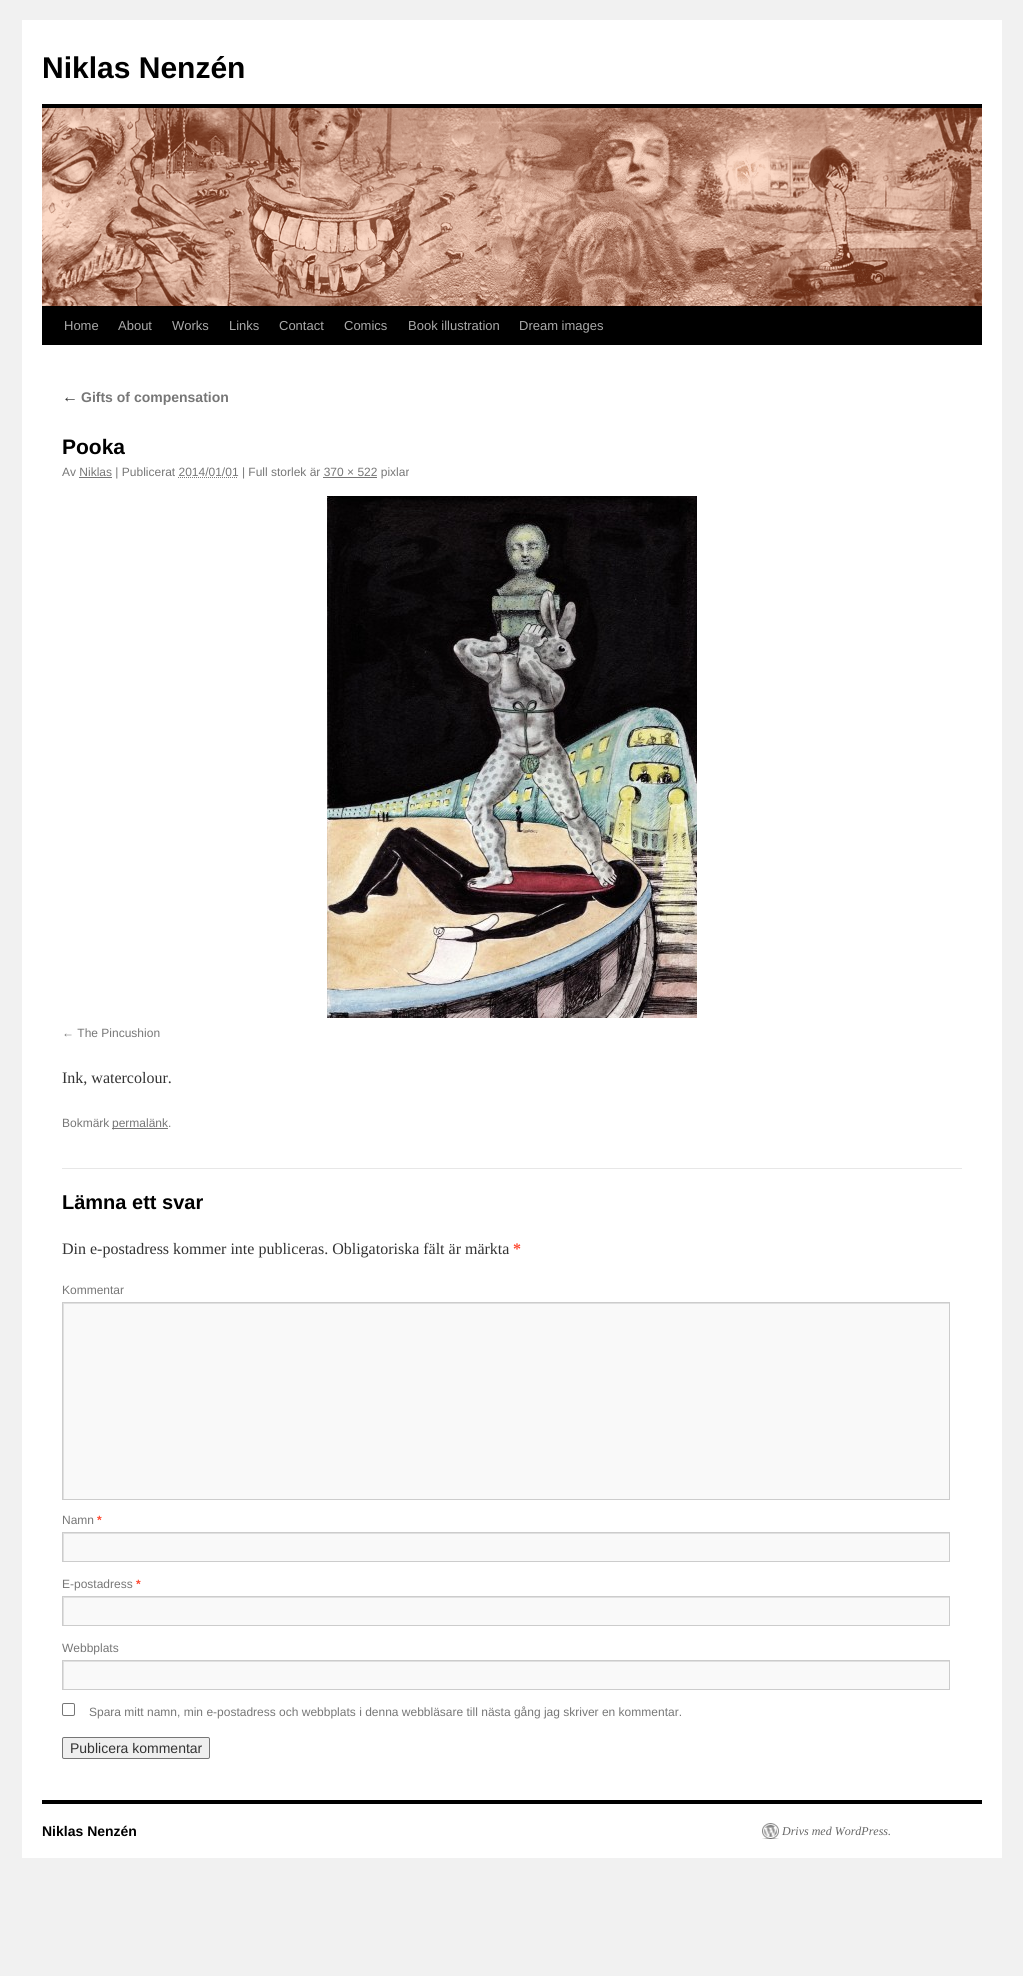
import math
import cairocffi as cairo

surface = cairo.ImageSurface(cairo.FORMAT_RGB24, 1023, 1976)
cr = cairo.Context(surface)
options = cairo.FontOptions()
options.set_hint_metrics(cairo.HINT_METRICS_OFF)
options.set_hint_style(cairo.HINT_STYLE_NONE)
cr.set_font_options(options)
cr.set_miter_limit(4)


def use_color(code):
    cr.set_source_rgb(*(v / 255 for v in bytes.fromhex(code[-6:])))


def round_rect(x, y, w, h, r):
    cr.new_sub_path()
    for i, (u, v) in enumerate([(x + w - r, y + h - r), (x + r, y + h - r), (x + r, y + r), (x + w - r, y + r)]):
        cr.arc(u, v, r, i * math.pi / 2, (i + 1) * math.pi / 2)
    cr.close_path()


def picture(path, x, y, w, h):
    cr.save()
    cr.set_source_surface(cairo.ImageSurface.create_from_png(path), x, y)
    cr.rectangle(x, y, w, h)
    cr.fill()
    cr.restore()


use_color("#f1f1f1")
cr.paint()
use_color("#ffffff")
cr.rectangle(22, 20, 980, 1838)
cr.fill()
cr.select_font_face("Liberation Sans", cairo.FONT_SLANT_NORMAL, cairo.FONT_WEIGHT_BOLD)
cr.set_font_size(30)
use_color("#000000")
cr.move_to(42, 78)
cr.show_text("Niklas Nenzén")
cr.rectangle(42, 104, 940, 4)
cr.fill()
cr.rectangle(42, 306, 940, 39)
cr.fill()
picture("img1.png", 42, 108, 940, 198)
cr.select_font_face("Liberation Sans")
cr.set_font_size(13)
use_color("#aaaaaa")
cr.move_to(64, 330)
cr.show_text("Home")
cr.move_to(118, 330)
cr.show_text("About")
cr.move_to(172, 330)
cr.show_text("Works")
cr.move_to(229, 330)
cr.show_text("Links")
cr.move_to(279, 330)
cr.show_text("Contact")
cr.move_to(344, 330)
cr.show_text("Comics")
cr.move_to(408, 330)
cr.show_text("Book illustration")
cr.move_to(519, 330)
cr.show_text("Dream images")
cr.select_font_face("Liberation Serif", cairo.FONT_SLANT_ITALIC)
cr.set_font_size(16)
use_color("#333333")
cr.move_to(62, 402)
cr.show_text("←")
cr.select_font_face("Liberation Sans", cairo.FONT_SLANT_NORMAL, cairo.FONT_WEIGHT_BOLD)
cr.set_font_size(14)
use_color("#777777")
cr.move_to(81, 402)
cr.show_text("Gifts of compensation")
cr.set_font_size(21)
use_color("#000000")
cr.move_to(62, 454)
cr.show_text("Pooka")
cr.select_font_face("Liberation Sans")
cr.set_font_size(12)
use_color("#777777")
cr.move_to(62, 476)
cr.show_text("Av Niklas | Publicerat 2014/01/01 | Full storlek är 370 × 522 pixlar")
cr.rectangle(79, 477, 33, 1)
cr.fill()
cr.new_path()
cr.move_to(178, 477.5)
cr.line_to(238, 477.5)
cr.set_line_width(1)
cr.set_dash([1, 1])
cr.stroke()
cr.rectangle(323, 477, 54, 1)
cr.fill()
picture("img2.png", 327, 496, 370, 522)
cr.move_to(62, 1037)
cr.show_text("← The Pincushion")
cr.select_font_face("Liberation Serif")
cr.set_font_size(16)
use_color("#333333")
cr.move_to(62, 1083)
cr.show_text("Ink, watercolour.")
cr.select_font_face("Liberation Sans")
cr.set_font_size(12)
use_color("#777777")
cr.move_to(62, 1127)
cr.show_text("Bokmärk")
cr.rectangle(112, 1128, 56, 1)
cr.fill()
cr.move_to(112, 1127)
cr.show_text("permalänk.")
use_color("#e7e7e7")
cr.rectangle(62, 1168, 900, 1)
cr.fill()
cr.select_font_face("Liberation Sans", cairo.FONT_SLANT_NORMAL, cairo.FONT_WEIGHT_BOLD)
cr.set_font_size(20)
use_color("#000000")
cr.move_to(62, 1209)
cr.show_text("Lämna ett svar")
cr.select_font_face("Liberation Serif")
cr.set_font_size(16)
use_color("#333333")
cr.move_to(62, 1254)
cr.show_text("Din e-postadress kommer inte publiceras. Obligatoriska fält är märkta")
cr.select_font_face("Liberation Serif", cairo.FONT_SLANT_NORMAL, cairo.FONT_WEIGHT_BOLD)
use_color("#ff4b33")
cr.move_to(513, 1254)
cr.show_text("*")
cr.select_font_face("Liberation Sans")
cr.set_font_size(12)
use_color("#777777")
cr.move_to(62, 1294)
cr.show_text("Kommentar")
use_color("#f9f9f9")
cr.rectangle(64, 1304, 885, 195)
cr.fill()
cr.save()
cr.rectangle(63, 1303, 886, 196)
cr.clip()
use_color("#e0e0e0")
cr.set_fill_rule(cairo.FILL_RULE_EVEN_ODD)
cr.new_path()
cr.move_to(-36, 1204)
cr.line_to(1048, 1204)
cr.line_to(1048, 1598)
cr.line_to(-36, 1598)
cr.close_path()
cr.move_to(64, 1304)
cr.line_to(950, 1304)
cr.line_to(950, 1500)
cr.line_to(64, 1500)
cr.close_path()
cr.fill()
cr.restore()
cr.rectangle(62.5, 1302.5, 887, 197)
use_color("#cccccc")
cr.set_dash([])
cr.stroke()
use_color("#777777")
cr.move_to(62, 1524)
cr.show_text("Namn")
cr.select_font_face("Liberation Sans", cairo.FONT_SLANT_NORMAL, cairo.FONT_WEIGHT_BOLD)
use_color("#ff4b33")
cr.move_to(97, 1524)
cr.show_text("*")
use_color("#f9f9f9")
cr.rectangle(64, 1534, 885, 27)
cr.fill()
cr.save()
cr.rectangle(63, 1533, 886, 28)
cr.clip()
use_color("#e0e0e0")
cr.set_fill_rule(cairo.FILL_RULE_EVEN_ODD)
cr.new_path()
cr.move_to(-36, 1434)
cr.line_to(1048, 1434)
cr.line_to(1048, 1660)
cr.line_to(-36, 1660)
cr.close_path()
cr.move_to(64, 1534)
cr.line_to(950, 1534)
cr.line_to(950, 1562)
cr.line_to(64, 1562)
cr.close_path()
cr.fill()
cr.restore()
cr.rectangle(62.5, 1532.5, 887, 29)
use_color("#cccccc")
cr.stroke()
cr.select_font_face("Liberation Sans")
use_color("#777777")
cr.move_to(62, 1588)
cr.show_text("E-postadress")
cr.select_font_face("Liberation Sans", cairo.FONT_SLANT_NORMAL, cairo.FONT_WEIGHT_BOLD)
use_color("#ff4b33")
cr.move_to(136, 1588)
cr.show_text("*")
use_color("#f9f9f9")
cr.rectangle(64, 1598, 885, 27)
cr.fill()
cr.save()
cr.rectangle(63, 1597, 886, 28)
cr.clip()
use_color("#e0e0e0")
cr.set_fill_rule(cairo.FILL_RULE_EVEN_ODD)
cr.new_path()
cr.move_to(-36, 1498)
cr.line_to(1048, 1498)
cr.line_to(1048, 1724)
cr.line_to(-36, 1724)
cr.close_path()
cr.move_to(64, 1598)
cr.line_to(950, 1598)
cr.line_to(950, 1626)
cr.line_to(64, 1626)
cr.close_path()
cr.fill()
cr.restore()
cr.rectangle(62.5, 1596.5, 887, 29)
use_color("#cccccc")
cr.stroke()
cr.select_font_face("Liberation Sans")
use_color("#777777")
cr.move_to(62, 1652)
cr.show_text("Webbplats")
use_color("#f9f9f9")
cr.rectangle(64, 1662, 885, 27)
cr.fill()
cr.save()
cr.rectangle(63, 1661, 886, 28)
cr.clip()
use_color("#e0e0e0")
cr.set_fill_rule(cairo.FILL_RULE_EVEN_ODD)
cr.new_path()
cr.move_to(-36, 1562)
cr.line_to(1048, 1562)
cr.line_to(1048, 1788)
cr.line_to(-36, 1788)
cr.close_path()
cr.move_to(64, 1662)
cr.line_to(950, 1662)
cr.line_to(950, 1690)
cr.line_to(64, 1690)
cr.close_path()
cr.fill()
cr.restore()
cr.rectangle(62.5, 1660.5, 887, 29)
use_color("#cccccc")
cr.stroke()
round_rect(62.5, 1703.5, 12, 12, 1.5)
use_color("#767676")
cr.stroke()
use_color("#777777")
cr.move_to(89, 1716)
cr.show_text("Spara mitt namn, min e-postadress och webbplats i denna webbläsare till nästa gång jag skriver en kommentar.")
use_color("#efefef")
round_rect(62.5, 1737.5, 147, 21, 1.5)
cr.fill_preserve()
use_color("#767676")
cr.stroke()
cr.set_font_size(14)
use_color("#333333")
cr.move_to(70, 1753)
cr.show_text("Publicera kommentar")
use_color("#000000")
cr.rectangle(42, 1800, 940, 4)
cr.fill()
cr.select_font_face("Liberation Sans", cairo.FONT_SLANT_NORMAL, cairo.FONT_WEIGHT_BOLD)
cr.move_to(42, 1836)
cr.show_text("Niklas Nenzén")
picture("img3.png", 762, 1823, 17, 16)
cr.select_font_face("Liberation Serif", cairo.FONT_SLANT_ITALIC)
cr.set_font_size(12)
use_color("#666666")
cr.move_to(782, 1835)
cr.show_text("Drivs med WordPress.")
surface.write_to_png("result.png")
